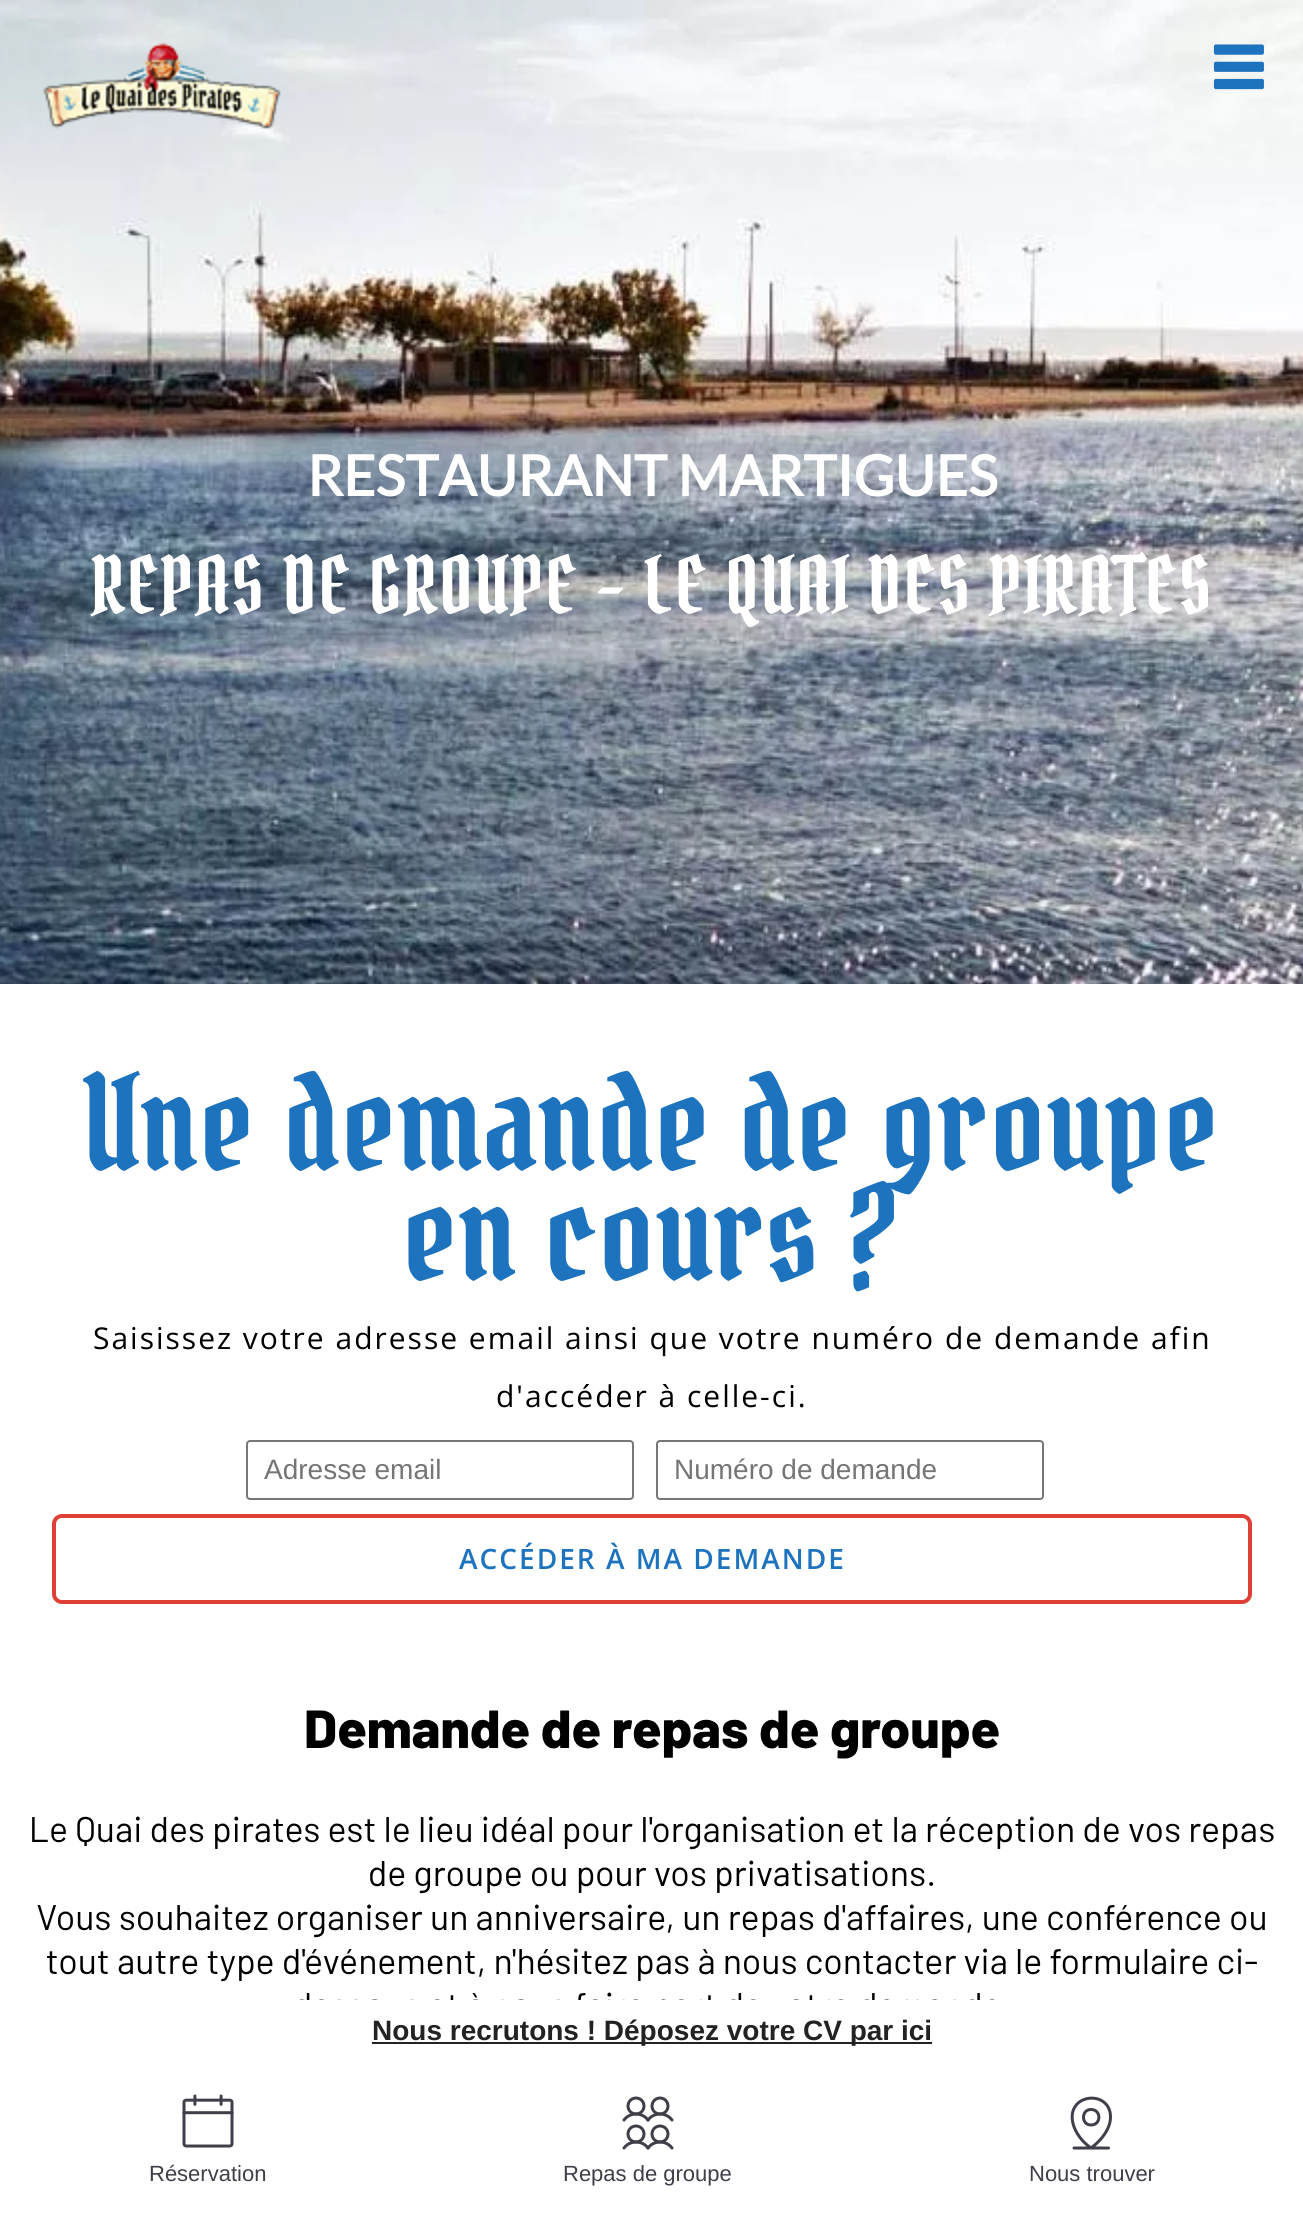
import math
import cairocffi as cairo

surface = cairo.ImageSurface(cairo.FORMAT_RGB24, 1303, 2224)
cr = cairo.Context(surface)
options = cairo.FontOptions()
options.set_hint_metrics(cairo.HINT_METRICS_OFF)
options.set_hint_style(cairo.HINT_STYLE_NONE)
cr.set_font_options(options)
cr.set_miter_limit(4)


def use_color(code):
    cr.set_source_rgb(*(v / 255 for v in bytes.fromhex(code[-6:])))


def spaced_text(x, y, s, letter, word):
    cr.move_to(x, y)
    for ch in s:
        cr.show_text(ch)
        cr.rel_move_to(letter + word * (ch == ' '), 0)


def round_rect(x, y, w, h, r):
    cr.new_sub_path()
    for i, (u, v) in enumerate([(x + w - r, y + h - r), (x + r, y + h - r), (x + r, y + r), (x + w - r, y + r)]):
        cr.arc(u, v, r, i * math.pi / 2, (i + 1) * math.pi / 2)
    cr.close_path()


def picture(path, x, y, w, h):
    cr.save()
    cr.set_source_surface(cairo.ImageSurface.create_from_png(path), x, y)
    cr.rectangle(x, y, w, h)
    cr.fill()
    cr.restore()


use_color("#ffffff")
cr.paint()
picture("img3.png", 0, 0, 1303, 984)
picture("img1.png", 1213, 44, 51, 46)
picture("img2.png", 43, 41, 238, 88)
cr.select_font_face("Lato", cairo.FONT_SLANT_NORMAL, cairo.FONT_WEIGHT_BOLD)
cr.set_font_size(56)
use_color("#ffffff")
cr.move_to(307, 496)
cr.show_text("RESTAURANT MARTIGUES")
cr.select_font_face("Pirata One")
cr.set_font_size(78)
spaced_text(91, 614, "REPAS DE GROUPE - LE QUAI DES PIRATES", 2, 0)
cr.set_font_size(130)
use_color("#1e73be")
spaced_text(83, 1171, "Une demande de groupe", 2, 0)
spaced_text(402, 1281, "en cours ?", 2, 0)
cr.select_font_face("Open Sans")
cr.set_font_size(30)
use_color("#000000")
spaced_text(93, 1349, "Saisissez votre adresse email ainsi que votre numéro de demande afin", 2, 0)
spaced_text(496, 1407, "d'accéder à celle-ci.", 2, 0)
round_rect(247, 1441, 386, 58, 3)
use_color("#767676")
cr.stroke()
cr.select_font_face("Liberation Sans")
cr.set_font_size(28)
use_color("#757575")
cr.move_to(264, 1479)
cr.show_text("Adresse email")
round_rect(657, 1441, 386, 58, 3)
use_color("#767676")
cr.stroke()
use_color("#757575")
cr.move_to(674, 1479)
cr.show_text("Numéro de demande")
round_rect(54, 1516, 1196, 86, 8)
use_color("#df4036")
cr.set_line_width(4)
cr.stroke()
cr.select_font_face("Open Sans SemiBold")
use_color("#1e73be")
spaced_text(459, 1569, "ACCÉDER À MA DEMANDE", 2, 0)
picture("img4.png", 32, 1710, 1242, 290)
use_color("#222222")
cr.rectangle(372, 2042, 560, 2)
cr.fill()
cr.select_font_face("Liberation Sans", cairo.FONT_SLANT_NORMAL, cairo.FONT_WEIGHT_BOLD)
cr.move_to(372, 2040)
cr.show_text("Nous recrutons ! Déposez votre CV par ici")
picture("img5.png", 182, 2094, 52, 54)
cr.select_font_face("Liberation Sans")
cr.set_font_size(22)
use_color("#3e3f49")
cr.move_to(149, 2181)
cr.show_text("Réservation")
picture("img6.png", 622, 2096, 52, 54)
cr.move_to(563, 2181)
cr.show_text("Repas de groupe")
cr.new_path()
cr.move_to(1074, 2148)
cr.line_to(1108.5, 2148)
cr.move_to(1091, 2125)
cr.curve_to(1101.5, 2125, 1101.5, 2109.5, 1091, 2109.5)
cr.curve_to(1081, 2109.5, 1081, 2125, 1091, 2125)
cr.close_path()
cr.move_to(1110.5, 2117)
cr.curve_to(1110.5, 2134.5, 1091, 2148, 1091, 2148)
cr.curve_to(1083, 2142.5, 1075.5, 2133.5, 1073, 2123.5)
cr.curve_to(1065.5, 2093, 1110.5, 2089, 1110.5, 2117)
cr.close_path()
cr.set_line_width(3)
cr.set_line_cap(cairo.LINE_CAP_ROUND)
cr.set_line_join(cairo.LINE_JOIN_ROUND)
cr.stroke()
cr.move_to(1029, 2181)
cr.show_text("Nous trouver")
surface.write_to_png("result.png")
